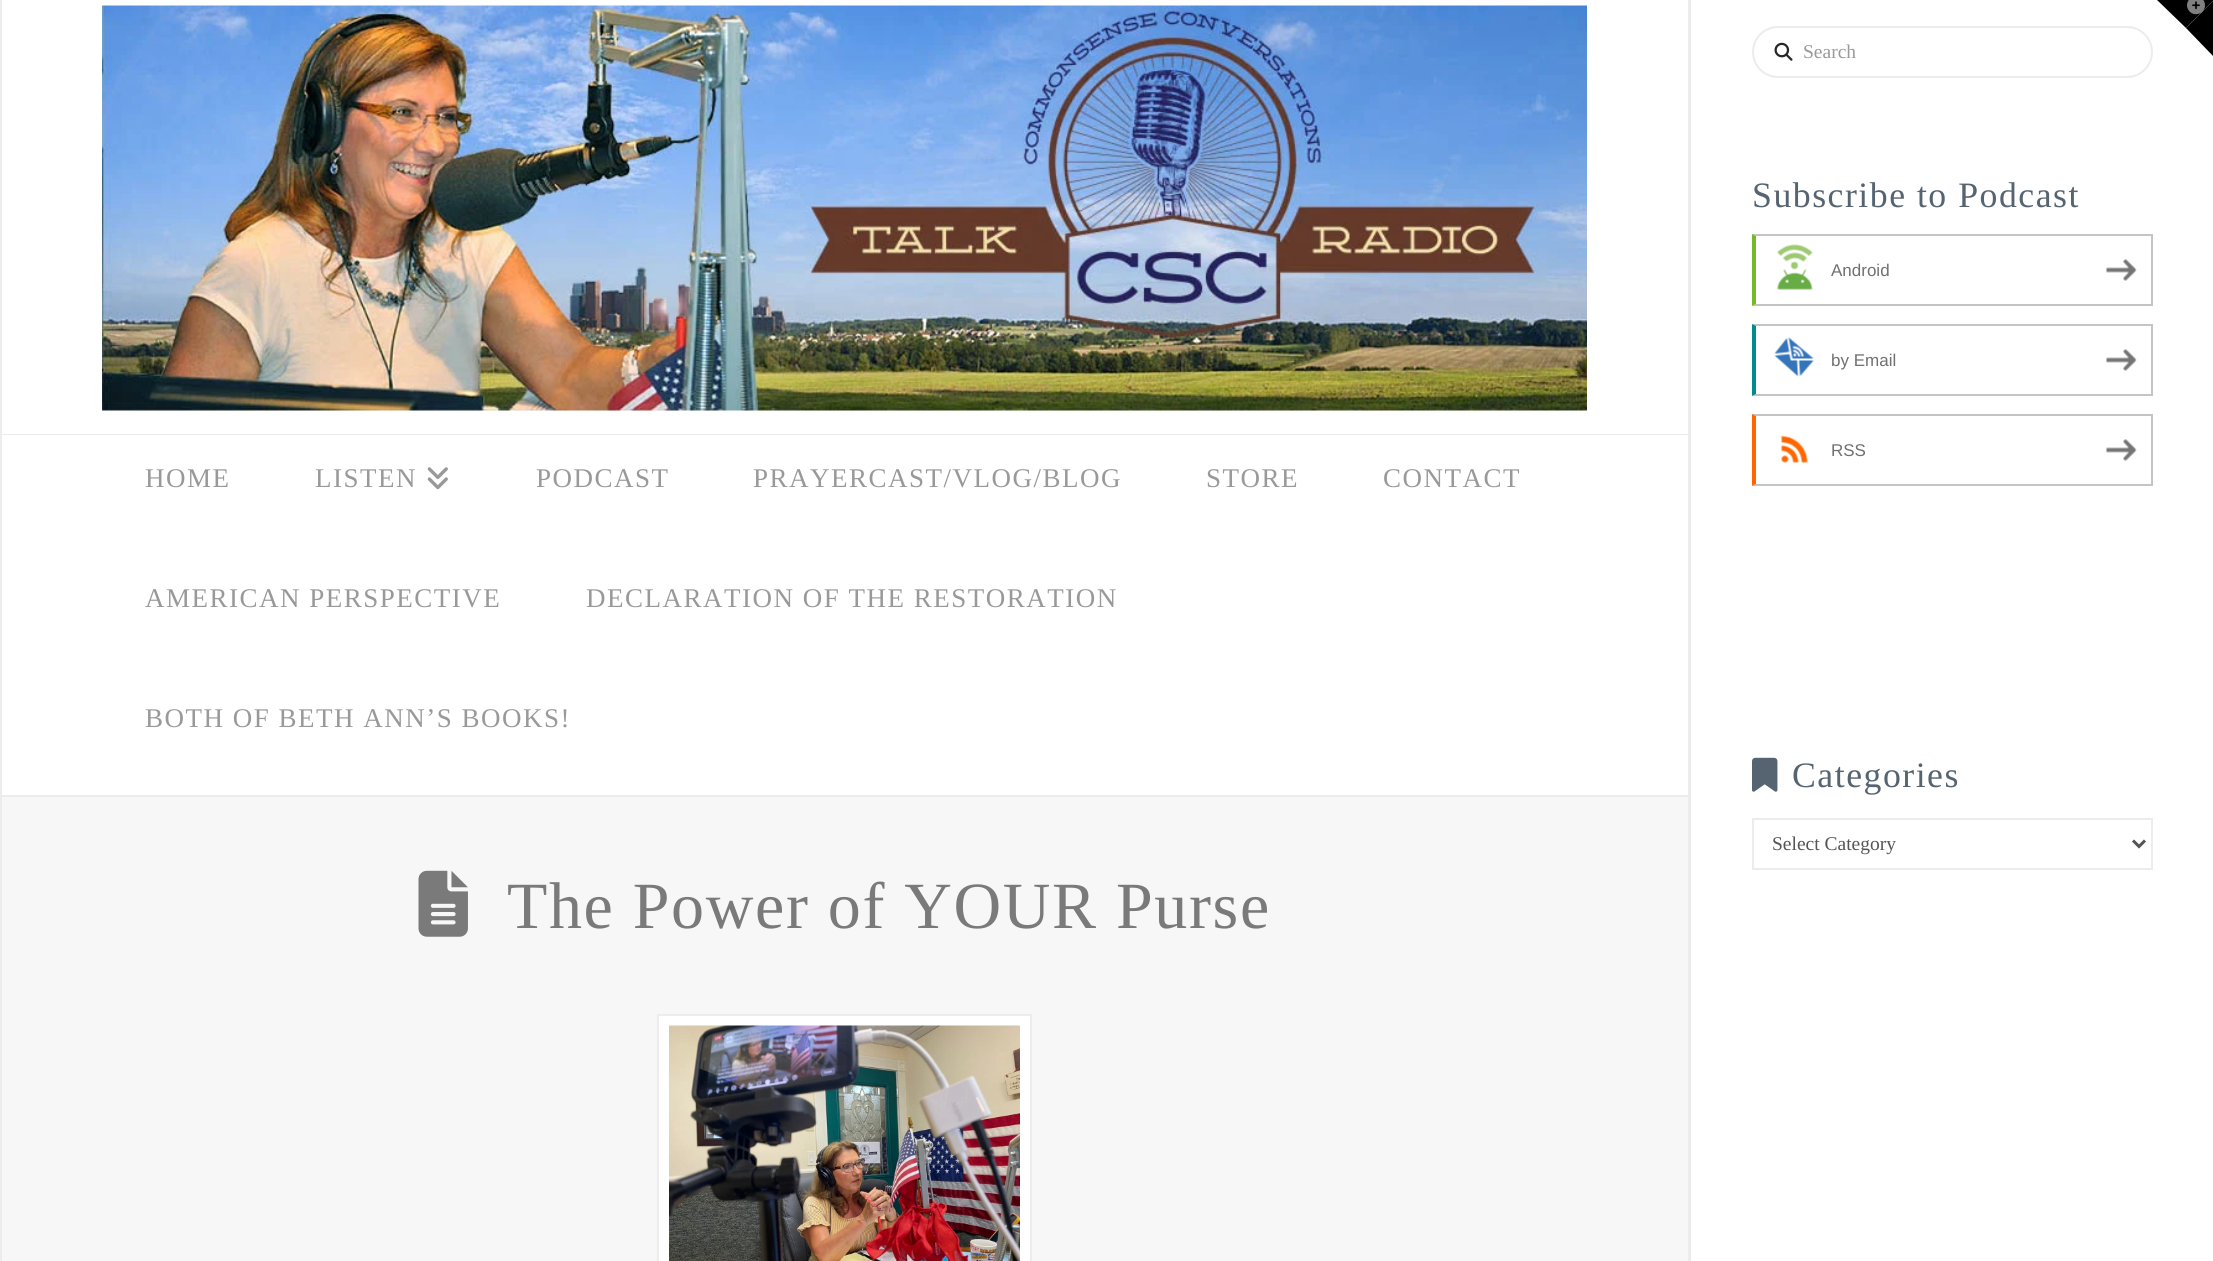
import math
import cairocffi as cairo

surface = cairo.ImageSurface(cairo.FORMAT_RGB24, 2213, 1261)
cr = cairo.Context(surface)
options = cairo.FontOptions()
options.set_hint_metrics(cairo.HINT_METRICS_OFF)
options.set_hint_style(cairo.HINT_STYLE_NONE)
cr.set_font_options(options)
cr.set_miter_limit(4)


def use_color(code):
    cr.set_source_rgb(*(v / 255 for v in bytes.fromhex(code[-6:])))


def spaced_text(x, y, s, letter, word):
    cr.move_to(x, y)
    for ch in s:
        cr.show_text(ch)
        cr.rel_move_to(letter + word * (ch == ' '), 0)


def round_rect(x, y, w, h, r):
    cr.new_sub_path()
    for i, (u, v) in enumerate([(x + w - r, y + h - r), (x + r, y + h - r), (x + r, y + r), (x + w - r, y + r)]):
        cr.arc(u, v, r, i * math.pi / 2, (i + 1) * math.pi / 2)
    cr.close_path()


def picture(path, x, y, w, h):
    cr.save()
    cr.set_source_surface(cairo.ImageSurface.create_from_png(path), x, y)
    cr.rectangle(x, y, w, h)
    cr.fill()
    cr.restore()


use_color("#ffffff")
cr.paint()
use_color("#000000")
cr.new_path()
cr.move_to(2157, 0)
cr.line_to(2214, 0)
cr.line_to(2186, 28)
cr.close_path()
cr.fill()
cr.new_path()
cr.move_to(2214, 0)
cr.line_to(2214, 57)
cr.line_to(2186, 28)
cr.close_path()
cr.fill()
picture("img1.png", 2187, 0, 18, 15)
use_color("#ededed")
cr.rectangle(1688, 0, 1, 1261)
cr.fill()
use_color("#ececec")
cr.rectangle(0, 0, 2, 1261)
cr.fill()
cr.rectangle(2, 434, 1686, 1)
cr.fill()
picture("img2.png", 102, 5, 1485, 406)
cr.rectangle(2, 795, 1686, 2)
cr.fill()
cr.select_font_face("Liberation Serif")
cr.set_font_size(27)
use_color("#999999")
spaced_text(145, 487, "HOME", 1.5, 0)
spaced_text(315, 487, "LISTEN", 1.5, 0)
picture("img3.png", 427, 467, 21, 23)
spaced_text(536, 487, "PODCAST", 1.5, 0)
spaced_text(753, 487, "PRAYERCAST/VLOG/BLOG", 1.5, 0)
spaced_text(1206, 487, "STORE", 1.5, 0)
spaced_text(1383, 487, "CONTACT", 1.5, 0)
spaced_text(145, 607, "AMERICAN PERSPECTIVE", 1.5, 0)
spaced_text(586, 607, "DECLARATION OF THE RESTORATION", 1.5, 0)
spaced_text(145, 727, "BOTH OF BETH ANN’S BOOKS!", 1.5, 0)
use_color("#ececec")
cr.rectangle(1689, 0, 2, 1261)
cr.fill()
round_rect(1753, 27, 399, 50, 25)
cr.stroke()
picture("img4.png", 1774, 42, 19, 19)
cr.set_font_size(19.5)
use_color("#999999")
cr.move_to(1803, 58)
cr.show_text("Search")
cr.set_font_size(35.75)
use_color("#566471")
spaced_text(1752, 207, "Subscribe to Podcast", 1.5, 0)
use_color("#c4c4c4")
cr.new_path()
cr.move_to(1752, 234)
cr.line_to(2152, 234)
cr.line_to(2151, 236)
cr.line_to(1756, 236)
cr.close_path()
cr.fill()
cr.rectangle(2151, 234, 2, 72)
cr.fill()
cr.new_path()
cr.move_to(2152, 306)
cr.line_to(1752, 306)
cr.line_to(1756, 304)
cr.line_to(2151, 304)
cr.close_path()
cr.fill()
use_color("#75ba26")
cr.new_path()
cr.move_to(1752, 306)
cr.line_to(1752, 234)
cr.line_to(1756, 236)
cr.line_to(1756, 304)
cr.close_path()
cr.fill()
picture("img5.png", 1777, 244, 36, 46)
cr.select_font_face("Liberation Sans")
cr.set_font_size(17)
use_color("#707070")
cr.move_to(1831, 276)
cr.show_text("Android")
picture("img6.png", 2106, 259, 31, 22)
use_color("#c4c4c4")
cr.new_path()
cr.move_to(1752, 324)
cr.line_to(2152, 324)
cr.line_to(2151, 326)
cr.line_to(1756, 326)
cr.close_path()
cr.fill()
cr.rectangle(2151, 324, 2, 72)
cr.fill()
cr.new_path()
cr.move_to(2152, 396)
cr.line_to(1752, 396)
cr.line_to(1756, 394)
cr.line_to(2151, 394)
cr.close_path()
cr.fill()
use_color("#018c8b")
cr.new_path()
cr.move_to(1752, 396)
cr.line_to(1752, 324)
cr.line_to(1756, 326)
cr.line_to(1756, 394)
cr.close_path()
cr.fill()
picture("img7.png", 1774, 337, 40, 40)
use_color("#707070")
cr.move_to(1831, 366)
cr.show_text("by Email")
picture("img6.png", 2106, 349, 31, 22)
use_color("#c4c4c4")
cr.new_path()
cr.move_to(1752, 414)
cr.line_to(2152, 414)
cr.line_to(2151, 416)
cr.line_to(1756, 416)
cr.close_path()
cr.fill()
cr.rectangle(2151, 414, 2, 72)
cr.fill()
cr.new_path()
cr.move_to(2152, 486)
cr.line_to(1752, 486)
cr.line_to(1756, 484)
cr.line_to(2151, 484)
cr.close_path()
cr.fill()
use_color("#ff6600")
cr.new_path()
cr.move_to(1752, 486)
cr.line_to(1752, 414)
cr.line_to(1756, 416)
cr.line_to(1756, 484)
cr.close_path()
cr.fill()
picture("img8.png", 1781, 435, 27, 28)
use_color("#707070")
cr.move_to(1831, 456)
cr.show_text("RSS")
picture("img6.png", 2106, 439, 31, 22)
picture("img9.png", 1752, 757, 26, 35)
cr.select_font_face("Liberation Serif")
cr.set_font_size(35.75)
use_color("#566471")
spaced_text(1792, 787, "Categories", 1.5, 0)
cr.rectangle(1753, 819, 399, 50)
use_color("#ececec")
cr.stroke()
cr.new_path()
cr.move_to(2133, 840.5)
cr.line_to(2139, 846.5)
cr.line_to(2145, 840.5)
use_color("#555555")
cr.set_line_width(3)
cr.stroke()
cr.set_font_size(19.5)
cr.move_to(1772, 850)
cr.show_text("Select Category")
use_color("#f7f7f7")
cr.rectangle(2, 797, 1686, 464)
cr.fill()
picture("img10.png", 418, 870, 50, 67)
cr.set_font_size(66)
use_color("#7a7a7a")
spaced_text(507, 928, "The Power of YOUR Purse", 1.65, 0)
use_color("#ffffff")
cr.rectangle(658, 1015, 373, 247)
cr.fill_preserve()
use_color("#ececec")
cr.set_line_width(2)
cr.stroke()
picture("img11.png", 669, 1025, 351, 236)
surface.write_to_png("result.png")
